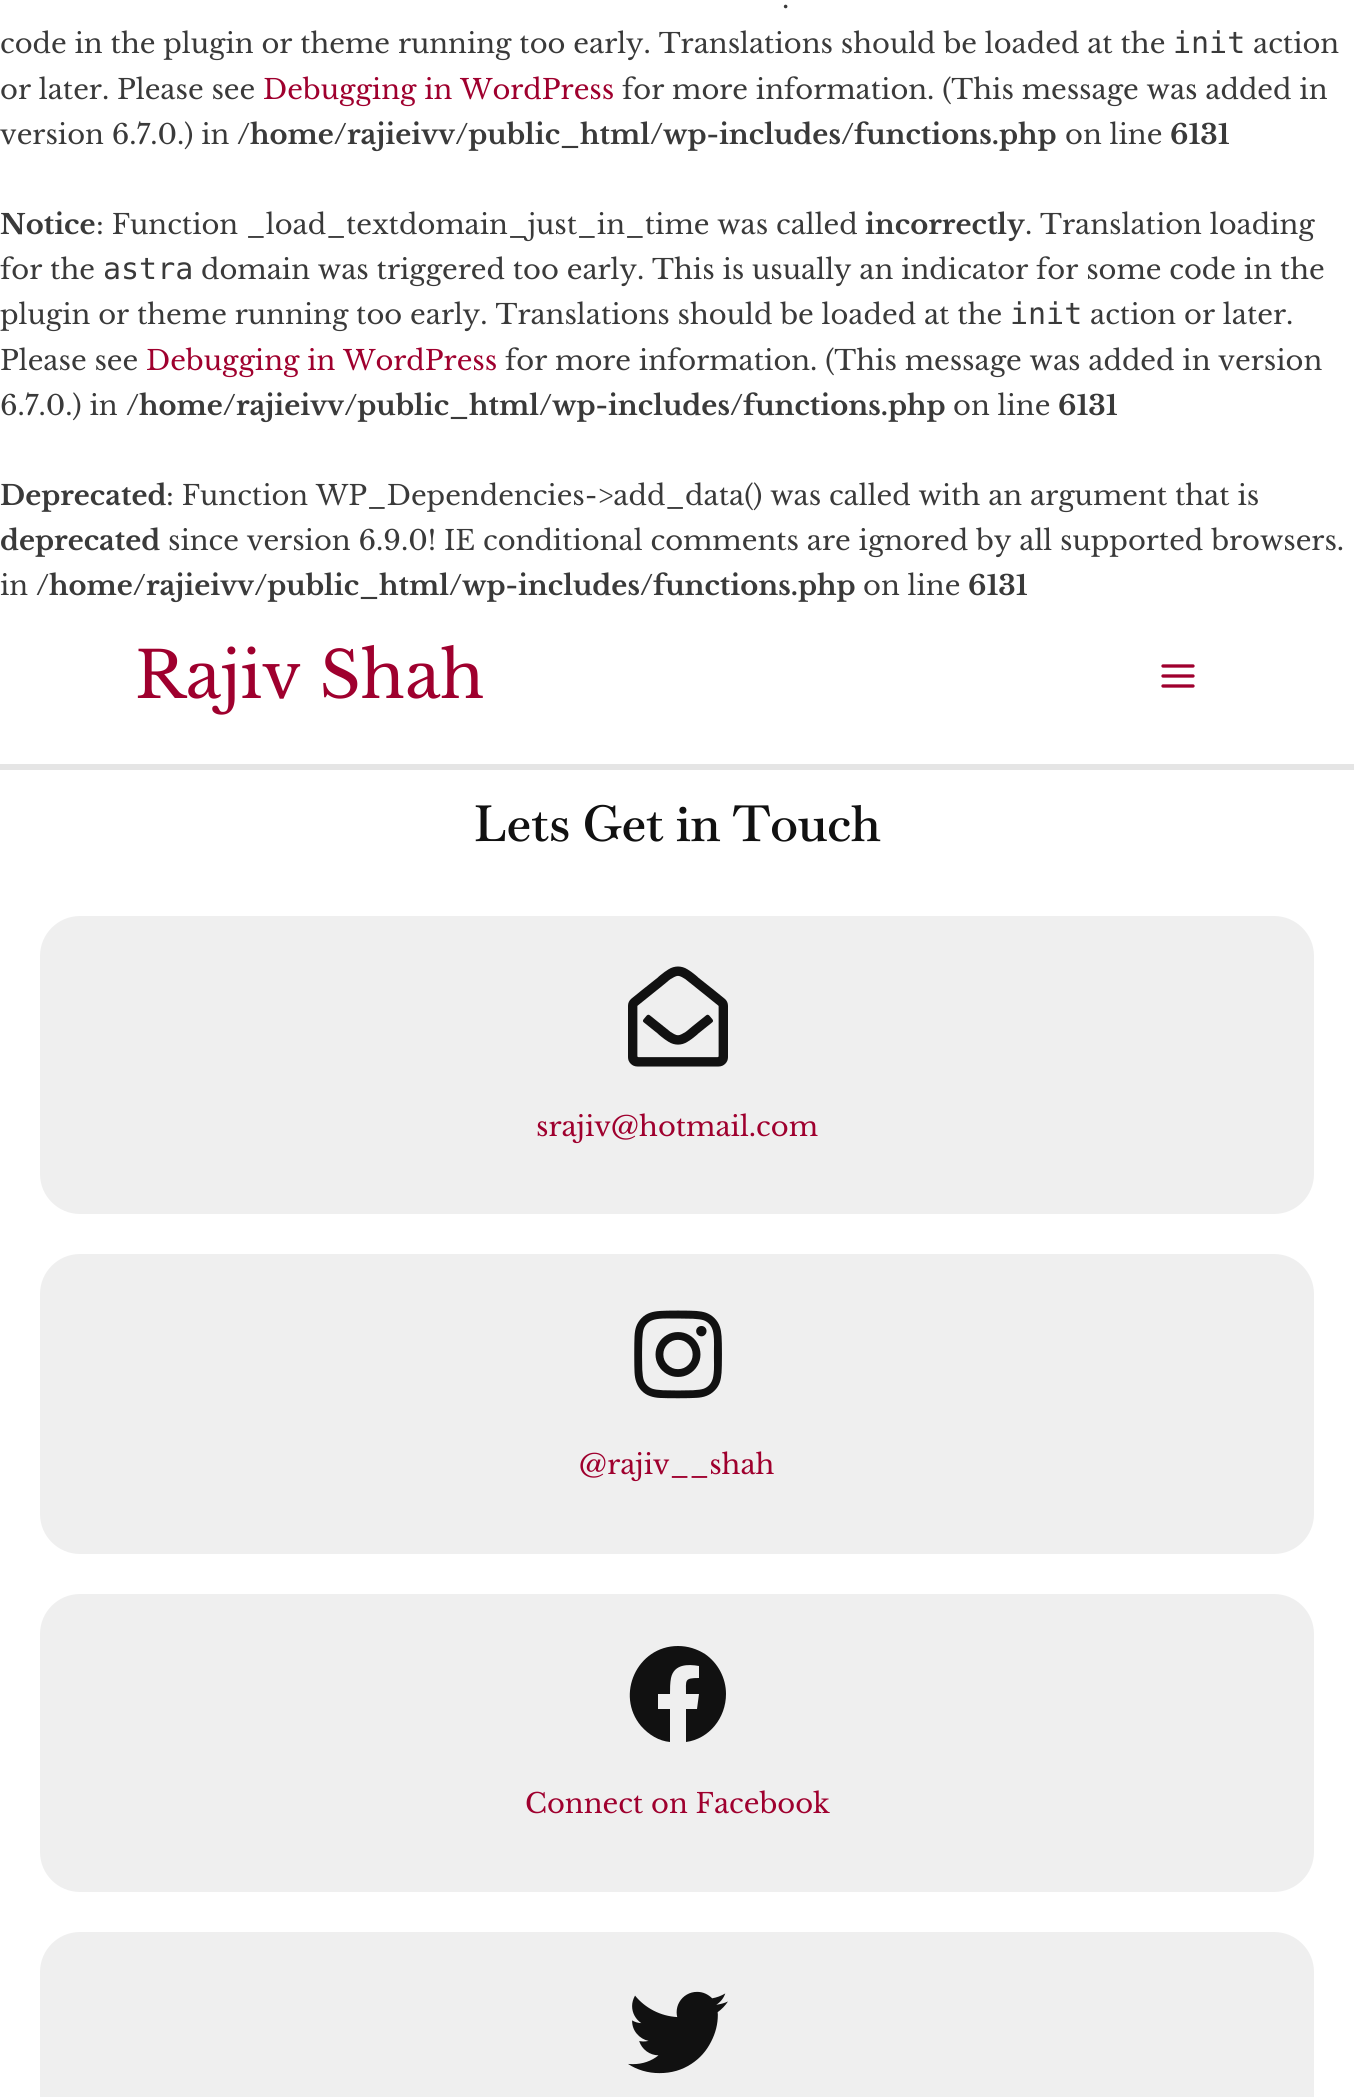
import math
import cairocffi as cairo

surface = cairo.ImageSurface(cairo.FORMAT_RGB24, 1354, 2097)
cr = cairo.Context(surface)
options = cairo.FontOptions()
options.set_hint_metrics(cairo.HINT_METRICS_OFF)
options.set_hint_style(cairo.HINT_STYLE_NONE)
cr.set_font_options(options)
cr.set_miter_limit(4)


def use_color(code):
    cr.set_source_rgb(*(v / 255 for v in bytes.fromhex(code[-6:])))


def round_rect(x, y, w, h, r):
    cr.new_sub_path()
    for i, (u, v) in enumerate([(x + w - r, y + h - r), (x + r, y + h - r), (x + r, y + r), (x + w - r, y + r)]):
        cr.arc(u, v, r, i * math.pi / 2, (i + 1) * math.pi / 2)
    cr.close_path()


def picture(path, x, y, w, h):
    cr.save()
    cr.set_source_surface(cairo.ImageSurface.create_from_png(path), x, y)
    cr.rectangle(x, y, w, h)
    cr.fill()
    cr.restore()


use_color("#ffffff")
cr.paint()
cr.select_font_face("Libre Baskerville")
cr.set_font_size(27.35)
use_color("#3a3a3a")
cr.move_to(782, 8)
cr.show_text(".")
cr.move_to(0, 53)
cr.show_text("code in the plugin or theme running too early. Translations should be loaded at the")
cr.select_font_face("DejaVu Sans Mono")
cr.set_font_size(30)
cr.move_to(1173, 53)
cr.show_text("init")
cr.select_font_face("Libre Baskerville")
cr.set_font_size(27.35)
cr.move_to(1253, 53)
cr.show_text("action")
cr.move_to(0, 99)
cr.show_text("or later. Please see")
use_color("#9f002e")
cr.move_to(263, 99)
cr.show_text("Debugging in WordPress")
use_color("#3a3a3a")
cr.move_to(622, 99)
cr.show_text("for more information. (This message was added in")
cr.move_to(0, 144)
cr.show_text("version 6.7.0.) in")
cr.select_font_face("Libre Baskerville", cairo.FONT_SLANT_NORMAL, cairo.FONT_WEIGHT_BOLD)
cr.move_to(237, 144)
cr.show_text("/home/rajieivv/public_html/wp-includes/functions.php")
cr.select_font_face("Libre Baskerville")
cr.move_to(1065, 144)
cr.show_text("on line")
cr.select_font_face("Libre Baskerville", cairo.FONT_SLANT_NORMAL, cairo.FONT_WEIGHT_BOLD)
cr.move_to(1170, 144)
cr.show_text("6131")
cr.move_to(0, 234)
cr.show_text("Notice")
cr.select_font_face("Libre Baskerville")
cr.move_to(96, 234)
cr.show_text(": Function _load_textdomain_just_in_time was called")
cr.select_font_face("Libre Baskerville", cairo.FONT_SLANT_NORMAL, cairo.FONT_WEIGHT_BOLD)
cr.move_to(865, 234)
cr.show_text("incorrectly")
cr.select_font_face("Libre Baskerville")
cr.move_to(1025, 234)
cr.show_text(". Translation loading")
cr.move_to(0, 279)
cr.show_text("for the")
cr.select_font_face("DejaVu Sans Mono")
cr.set_font_size(30)
cr.move_to(103, 279)
cr.show_text("astra")
cr.select_font_face("Libre Baskerville")
cr.set_font_size(27.35)
cr.move_to(201, 279)
cr.show_text("domain was triggered too early. This is usually an indicator for some code in the")
cr.move_to(0, 324)
cr.show_text("plugin or theme running too early. Translations should be loaded at the")
cr.select_font_face("DejaVu Sans Mono")
cr.set_font_size(30)
cr.move_to(1010, 324)
cr.show_text("init")
cr.select_font_face("Libre Baskerville")
cr.set_font_size(27.35)
cr.move_to(1090, 324)
cr.show_text("action or later.")
cr.move_to(0, 370)
cr.show_text("Please see")
use_color("#9f002e")
cr.move_to(146, 370)
cr.show_text("Debugging in WordPress")
use_color("#3a3a3a")
cr.move_to(505, 370)
cr.show_text("for more information. (This message was added in version")
cr.move_to(0, 415)
cr.show_text("6.7.0.) in")
cr.select_font_face("Libre Baskerville", cairo.FONT_SLANT_NORMAL, cairo.FONT_WEIGHT_BOLD)
cr.move_to(126, 415)
cr.show_text("/home/rajieivv/public_html/wp-includes/functions.php")
cr.select_font_face("Libre Baskerville")
cr.move_to(953, 415)
cr.show_text("on line")
cr.select_font_face("Libre Baskerville", cairo.FONT_SLANT_NORMAL, cairo.FONT_WEIGHT_BOLD)
cr.move_to(1058, 415)
cr.show_text("6131")
cr.move_to(0, 505)
cr.show_text("Deprecated")
cr.select_font_face("Libre Baskerville")
cr.move_to(166, 505)
cr.show_text(": Function WP_Dependencies->add_data() was called with an argument that is")
cr.select_font_face("Libre Baskerville", cairo.FONT_SLANT_NORMAL, cairo.FONT_WEIGHT_BOLD)
cr.move_to(0, 550)
cr.show_text("deprecated")
cr.select_font_face("Libre Baskerville")
cr.move_to(168, 550)
cr.show_text("since version 6.9.0! IE conditional comments are ignored by all supported browsers.")
cr.move_to(0, 595)
cr.show_text("in")
cr.select_font_face("Libre Baskerville", cairo.FONT_SLANT_NORMAL, cairo.FONT_WEIGHT_BOLD)
cr.move_to(36, 595)
cr.show_text("/home/rajieivv/public_html/wp-includes/functions.php")
cr.select_font_face("Libre Baskerville")
cr.move_to(863, 595)
cr.show_text("on line")
cr.select_font_face("Libre Baskerville", cairo.FONT_SLANT_NORMAL, cairo.FONT_WEIGHT_BOLD)
cr.move_to(968, 595)
cr.show_text("6131")
use_color("#e5e5e5")
cr.rectangle(0, 764, 1354, 6)
cr.fill()
cr.select_font_face("Libre Baskerville")
cr.set_font_size(64)
use_color("#9f002e")
cr.move_to(135, 698)
cr.show_text("Rajiv Shah")
picture("img1.png", 1161, 664, 34, 24)
cr.select_font_face("Baskervville SemiBold")
cr.set_font_size(50)
use_color("#111111")
cr.move_to(474, 841)
cr.show_text("Lets Get in Touch")
use_color("#efefef")
round_rect(40, 916, 1274, 298, 40)
cr.fill()
picture("img2.png", 628, 966, 100, 101)
cr.select_font_face("Libre Baskerville")
cr.set_font_size(27.35)
use_color("#9f002e")
cr.move_to(536, 1136)
cr.show_text("srajiv@hotmail.com")
use_color("#efefef")
round_rect(40, 1254, 1274, 300, 40)
cr.fill()
picture("img3.png", 634, 1310, 88, 89)
use_color("#9f002e")
cr.move_to(579, 1474)
cr.show_text("@rajiv__shah")
use_color("#efefef")
round_rect(40, 1594, 1274, 298, 40)
cr.fill()
use_color("#111111")
cr.new_path()
cr.move_to(726, 1694)
cr.curve_to(726, 1718, 709, 1739, 686, 1742)
cr.line_to(686, 1709)
cr.line_to(697, 1709)
cr.line_to(699, 1694)
cr.line_to(686, 1694)
cr.curve_to(686, 1680, 684, 1678, 699, 1678)
cr.line_to(699, 1666)
cr.curve_to(688, 1664, 674, 1664, 671, 1678)
cr.curve_to(670, 1683, 670, 1689, 670, 1694)
cr.line_to(658, 1694)
cr.line_to(658, 1709)
cr.line_to(670, 1709)
cr.line_to(670, 1742)
cr.curve_to(659, 1741, 649, 1735, 641, 1726)
cr.curve_to(615, 1695, 637, 1646, 678, 1646)
cr.curve_to(688, 1646, 697, 1649, 705, 1654)
cr.curve_to(718, 1663, 726, 1678, 726, 1694)
cr.close_path()
cr.fill()
use_color("#9f002e")
cr.move_to(525, 1813)
cr.show_text("Connect on Facebook")
use_color("#efefef")
round_rect(40, 1932, 1274, 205, 40)
cr.fill()
picture("img4.png", 628, 1991, 100, 83)
surface.write_to_png("result.png")
